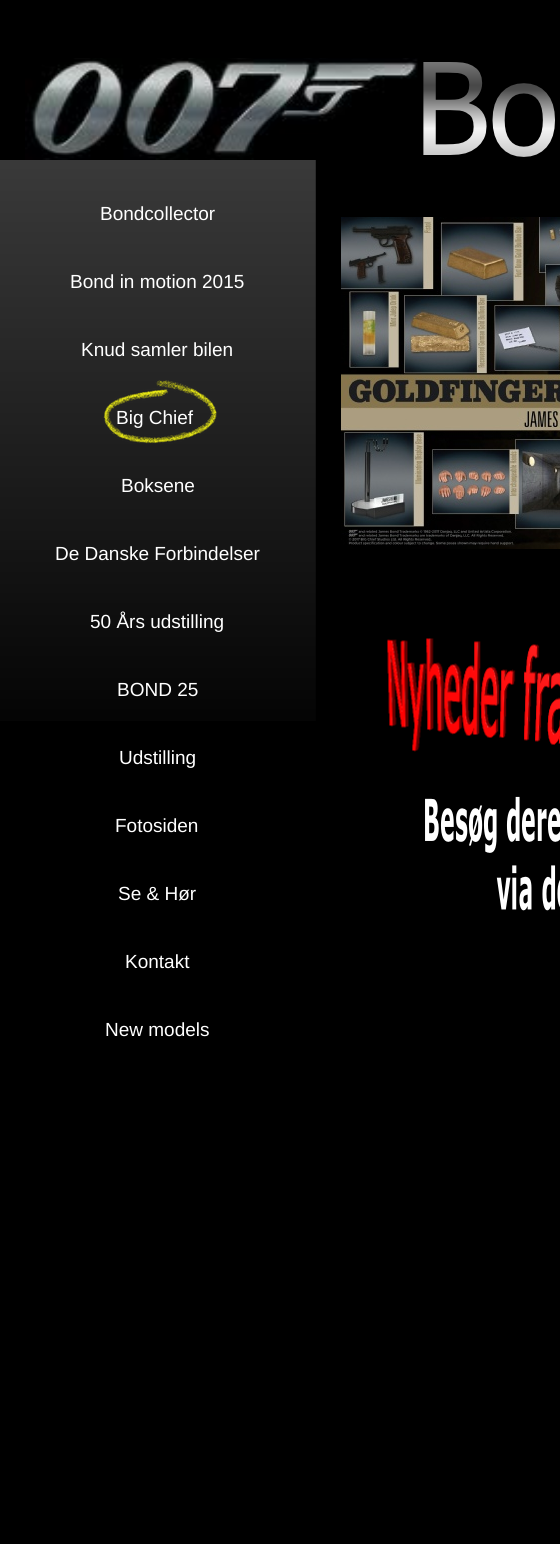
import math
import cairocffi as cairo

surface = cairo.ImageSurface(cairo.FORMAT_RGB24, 560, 1544)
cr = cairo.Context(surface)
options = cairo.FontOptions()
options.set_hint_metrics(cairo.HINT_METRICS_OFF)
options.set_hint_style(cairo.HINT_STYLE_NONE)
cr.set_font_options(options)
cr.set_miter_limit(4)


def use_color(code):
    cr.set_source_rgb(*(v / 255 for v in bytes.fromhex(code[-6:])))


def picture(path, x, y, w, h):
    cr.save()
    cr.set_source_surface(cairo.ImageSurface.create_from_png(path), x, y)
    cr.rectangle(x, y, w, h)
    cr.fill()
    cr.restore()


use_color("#000000")
cr.paint()
picture("img1.png", 25, 58, 393, 105)
picture("img2.png", 423, 62, 132, 95)
picture("img3.png", 0, 160, 316, 561)
cr.select_font_face("Liberation Sans")
cr.set_font_size(19)
use_color("#ffffff")
cr.move_to(100, 220)
cr.show_text("Bondcollector")
cr.move_to(70, 288)
cr.show_text("Bond in motion 2015")
cr.move_to(81, 356)
cr.show_text("Knud samler bilen")
picture("img4.png", 103, 380, 114, 64)
cr.move_to(116, 424)
cr.show_text("Big Chief")
cr.move_to(121, 492)
cr.show_text("Boksene")
cr.move_to(55, 560)
cr.show_text("De Danske Forbindelser")
cr.move_to(90, 628)
cr.show_text("50 Års udstilling")
cr.move_to(117, 696)
cr.show_text("BOND 25")
cr.move_to(119, 764)
cr.show_text("Udstilling")
cr.move_to(115, 832)
cr.show_text("Fotosiden")
cr.move_to(118, 900)
cr.show_text("Se & Hør")
cr.move_to(125, 968)
cr.show_text("Kontakt")
cr.move_to(105, 1036)
cr.show_text("New models")
picture("img5.png", 341, 217, 219, 332)
picture("img6.png", 387, 638, 173, 114)
picture("img7.png", 425, 796, 135, 115)
surface.write_to_png("result.png")
